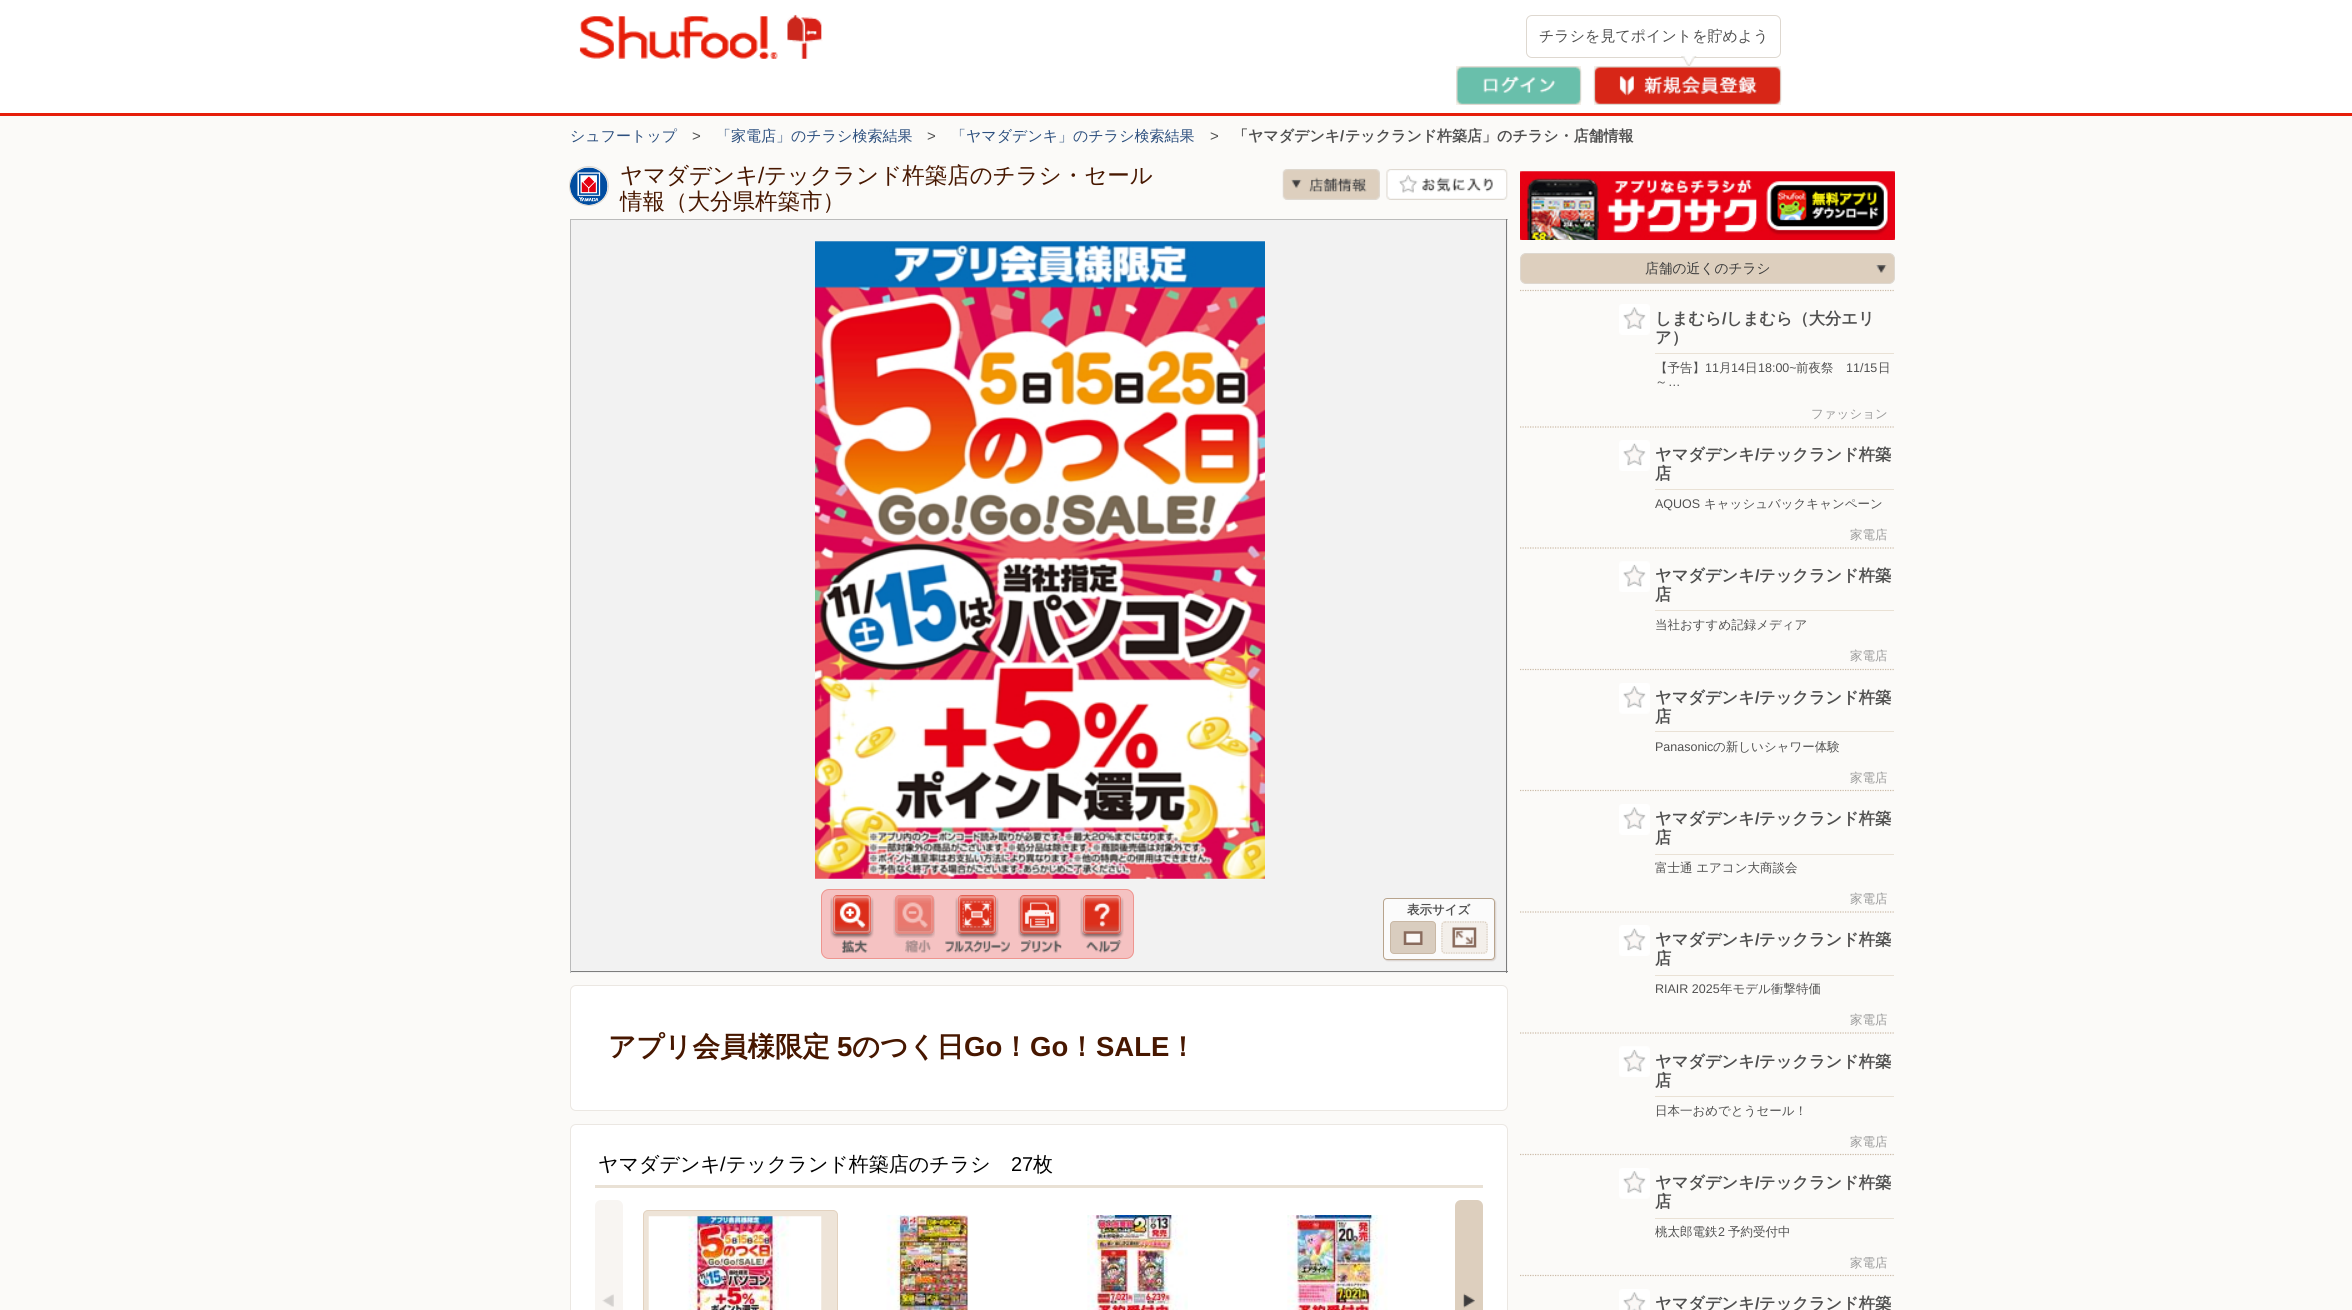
import math
import cairocffi as cairo

surface = cairo.ImageSurface(cairo.FORMAT_RGB24, 2352, 1310)
cr = cairo.Context(surface)
options = cairo.FontOptions()
options.set_hint_metrics(cairo.HINT_METRICS_OFF)
options.set_hint_style(cairo.HINT_STYLE_NONE)
cr.set_font_options(options)
cr.set_miter_limit(4)


def use_color(code):
    cr.set_source_rgb(*(v / 255 for v in bytes.fromhex(code[-6:])))


def round_rect(x, y, w, h, r):
    cr.new_sub_path()
    for i, (u, v) in enumerate([(x + w - r, y + h - r), (x + r, y + h - r), (x + r, y + r), (x + w - r, y + r)]):
        cr.arc(u, v, r, i * math.pi / 2, (i + 1) * math.pi / 2)
    cr.close_path()


def shadow(x, y, w, h, r, blur, alpha):
    cr.push_group_with_content(cairo.CONTENT_ALPHA)
    cr.set_operator(cairo.OPERATOR_SOURCE)
    for i in range(15, -16, -2):
        e = blur * i / 6
        if min(w, h) + 2 * e > 0:
            cr.set_source_rgba(0, 0, 0, alpha * math.erfc((i - 1) / 8.5) / 2)
            round_rect(x - e, y - e, w + 2 * e, h + 2 * e, max(0, min(r + e + blur * .6, min(w, h) / 2 + e)))
            cr.fill()
    cr.mask(cr.pop_group())


def picture(path, x, y, w, h):
    cr.save()
    cr.set_source_surface(cairo.ImageSurface.create_from_png(path), x, y)
    cr.rectangle(x, y, w, h)
    cr.fill()
    cr.restore()


use_color("#fbfaf8")
cr.paint()
use_color("#ffffff")
cr.rectangle(0, 0, 2352, 113)
cr.fill()
use_color("#e61e0a")
cr.rectangle(0, 113, 2352, 3)
cr.fill()
picture("img1.png", 579, 14, 244, 45)
round_rect(1526.5, 15.5, 254, 42, 5.5)
use_color("#ded8d0")
cr.set_line_width(1)
cr.stroke()
cr.select_font_face("WenQuanYi Zen Hei Medium")
cr.set_font_size(15)
use_color("#505050")
cr.move_to(1539, 41)
cr.show_text("チラシを見てポイントを貯めよう")
picture("img2.png", 1681, 56, 16, 10)
use_color("#f4f0ea")
cr.rectangle(1456, 66, 125, 39)
cr.fill()
picture("img3.png", 1456, 66, 126, 39)
cr.rectangle(1594, 66, 187, 39)
cr.fill()
picture("img4.png", 1593, 66, 189, 39)
use_color("#2c4f7e")
cr.move_to(570, 141)
cr.show_text("シュフートップ")
cr.select_font_face("Liberation Sans")
use_color("#505050")
cr.move_to(692, 141)
cr.show_text(">")
cr.select_font_face("WenQuanYi Zen Hei Medium")
use_color("#2c4f7e")
cr.move_to(716, 141)
cr.show_text("「家電店」のチラシ検索結果")
cr.select_font_face("Liberation Sans")
use_color("#505050")
cr.move_to(927, 141)
cr.show_text(">")
cr.select_font_face("WenQuanYi Zen Hei Medium")
use_color("#2c4f7e")
cr.move_to(951, 141)
cr.show_text("「ヤマダデンキ」のチラシ検索結果")
cr.select_font_face("Liberation Sans")
use_color("#505050")
cr.move_to(1210, 141)
cr.show_text(">")
cr.select_font_face("WenQuanYi Zen Hei", cairo.FONT_SLANT_NORMAL, cairo.FONT_WEIGHT_BOLD)
cr.move_to(1233, 141)
cr.show_text("「ヤマダデンキ")
cr.select_font_face("Liberation Sans", cairo.FONT_SLANT_NORMAL, cairo.FONT_WEIGHT_BOLD)
cr.move_to(1340, 141)
cr.show_text("/")
cr.select_font_face("WenQuanYi Zen Hei", cairo.FONT_SLANT_NORMAL, cairo.FONT_WEIGHT_BOLD)
cr.move_to(1345, 141)
cr.show_text("テックランド杵築店」のチラシ・店舗情報")
picture("img5.png", 570, 167, 38, 38)
cr.arc(589, 186, 19.5, 0, 2 * math.pi)
use_color("#ded8d0")
cr.stroke()
cr.select_font_face("WenQuanYi Zen Hei Medium")
cr.set_font_size(22.5)
use_color("#471700")
cr.move_to(620, 183)
cr.show_text("ヤマダデンキ")
cr.select_font_face("Liberation Sans")
cr.move_to(758, 183)
cr.show_text("/")
cr.select_font_face("WenQuanYi Zen Hei Medium")
cr.move_to(764, 183)
cr.show_text("テックランド杵築店のチラシ・セール")
cr.move_to(620, 209)
cr.show_text("情報（大分県杵築市）")
picture("img6.png", 1282, 169, 98, 31)
picture("img7.png", 1386, 169, 122, 31)
use_color("#f2f2f2")
cr.rectangle(571, 220, 937, 753)
cr.fill()
use_color("#bbbbbb")
cr.rectangle(570, 219, 938, 1)
cr.fill()
use_color("#7d7d7d")
cr.rectangle(1506, 219, 1, 754)
cr.fill()
cr.rectangle(570, 971, 938, 1)
cr.fill()
use_color("#bbbbbb")
cr.rectangle(570, 219, 1, 754)
cr.fill()
picture("img8.png", 815, 241, 450, 638)
use_color("#f5c2c2")
round_rect(821, 889, 313, 70, 8)
cr.fill()
round_rect(821.5, 889.5, 312, 69, 7.5)
cr.set_source_rgba(0.863, 0.18, 0.102, 0.3)
cr.stroke()
use_color("#dc2e1a")
round_rect(834, 896, 36, 37, 2.5)
cr.fill()
round_rect(833.5, 895.5, 37, 38, 3.5)
cr.set_source_rgba(0.863, 0.18, 0.102, 0.65)
cr.stroke()
picture("img9.png", 830, 896, 44, 43)
picture("img10.png", 830, 898, 44, 41)
picture("img11.png", 841, 940, 27, 13)
use_color("#e9786e")
round_rect(896, 896, 37, 37, 2.5)
cr.fill()
round_rect(895.5, 895.5, 38, 38, 3.5)
cr.set_source_rgba(0.914, 0.471, 0.431, 0.65)
cr.stroke()
picture("img12.png", 893, 896, 42, 42)
picture("img13.png", 893, 899, 42, 39)
picture("img14.png", 905, 940, 26, 13)
use_color("#dc2e1a")
round_rect(959, 896, 36, 37, 2.5)
cr.fill()
round_rect(958.5, 895.5, 37, 38, 3.5)
cr.set_source_rgba(0.863, 0.18, 0.102, 0.65)
cr.stroke()
picture("img15.png", 955, 896, 44, 43)
picture("img16.png", 955, 898, 44, 41)
picture("img17.png", 945, 940, 65, 13)
use_color("#dc2e1a")
round_rect(1021, 896, 37, 37, 2.5)
cr.fill()
round_rect(1020.5, 895.5, 38, 38, 3.5)
cr.set_source_rgba(0.863, 0.18, 0.102, 0.65)
cr.stroke()
picture("img18.png", 1018, 896, 43, 43)
picture("img19.png", 1018, 898, 43, 41)
picture("img20.png", 1021, 940, 41, 13)
use_color("#dc2e1a")
round_rect(1084, 896, 36, 37, 2.5)
cr.fill()
round_rect(1083.5, 895.5, 37, 38, 3.5)
cr.set_source_rgba(0.863, 0.18, 0.102, 0.65)
cr.stroke()
picture("img21.png", 1080, 896, 44, 43)
picture("img22.png", 1080, 898, 44, 41)
picture("img23.png", 1086, 940, 36, 13)
cr.save()
cr.set_fill_rule(cairo.FILL_RULE_EVEN_ODD)
cr.new_path()
cr.move_to(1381, 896)
cr.line_to(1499, 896)
cr.line_to(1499, 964)
cr.line_to(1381, 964)
cr.close_path()
cr.move_to(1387, 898)
cr.line_to(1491, 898)
cr.curve_to(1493, 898, 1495, 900, 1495, 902)
cr.line_to(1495, 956)
cr.curve_to(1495, 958, 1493, 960, 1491, 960)
cr.line_to(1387, 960)
cr.curve_to(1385, 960, 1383, 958, 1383, 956)
cr.line_to(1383, 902)
cr.curve_to(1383, 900, 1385, 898, 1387, 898)
cr.close_path()
cr.clip()
use_color("#471700")
shadow(1384, 899, 112, 62, 4, 0.5, 0.15)
cr.restore()
cr.set_source_rgba(1, 1, 1, 0.7)
round_rect(1383.5, 898.5, 111, 61, 3.5)
cr.fill_preserve()
use_color("#b8a48d")
cr.stroke()
cr.select_font_face("WenQuanYi Zen Hei", cairo.FONT_SLANT_NORMAL, cairo.FONT_WEIGHT_BOLD)
cr.set_font_size(12.5)
use_color("#505050")
cr.move_to(1407, 914)
cr.show_text("表示サイズ")
use_color("#d9cdbf")
round_rect(1390.5, 921.5, 45, 32, 3.5)
cr.fill_preserve()
use_color("#c9b8a5")
cr.stroke()
picture("img24.png", 1403, 931, 20, 14)
use_color("#f3efea")
round_rect(1441, 921, 47, 33, 4)
cr.fill()
cr.new_path()
cr.move_to(1445, 922)
cr.line_to(1484, 922)
cr.curve_to(1485.5, 922, 1487, 923.5, 1487, 925)
cr.line_to(1487, 950)
cr.curve_to(1487, 951.5, 1485.5, 953, 1484, 953)
cr.line_to(1445, 953)
cr.curve_to(1443.5, 953, 1442, 951.5, 1442, 950)
cr.line_to(1442, 925)
cr.curve_to(1442, 923.5, 1443.5, 922, 1445, 922)
cr.close_path()
use_color("#d9cdbf")
cr.set_line_width(1.2)
cr.set_dash([1.25, 1.25])
cr.stroke()
picture("img25.png", 1452, 927, 25, 21)
use_color("#ffffff")
round_rect(570.5, 985.5, 937, 125, 5.5)
cr.fill_preserve()
use_color("#ebe7e2")
cr.set_line_width(1)
cr.set_dash([])
cr.stroke()
cr.set_font_size(27.5)
use_color("#471700")
cr.move_to(608, 1056)
cr.show_text("アプリ会員様限定")
cr.select_font_face("Liberation Sans", cairo.FONT_SLANT_NORMAL, cairo.FONT_WEIGHT_BOLD)
cr.move_to(837, 1056)
cr.show_text("5")
cr.select_font_face("WenQuanYi Zen Hei", cairo.FONT_SLANT_NORMAL, cairo.FONT_WEIGHT_BOLD)
cr.move_to(852, 1056)
cr.show_text("のつく日")
cr.select_font_face("Liberation Sans", cairo.FONT_SLANT_NORMAL, cairo.FONT_WEIGHT_BOLD)
cr.move_to(964, 1056)
cr.show_text("Go")
cr.select_font_face("WenQuanYi Zen Hei", cairo.FONT_SLANT_NORMAL, cairo.FONT_WEIGHT_BOLD)
cr.move_to(1002, 1056)
cr.show_text("！")
cr.select_font_face("Liberation Sans", cairo.FONT_SLANT_NORMAL, cairo.FONT_WEIGHT_BOLD)
cr.move_to(1030, 1056)
cr.show_text("Go")
cr.select_font_face("WenQuanYi Zen Hei", cairo.FONT_SLANT_NORMAL, cairo.FONT_WEIGHT_BOLD)
cr.move_to(1068, 1056)
cr.show_text("！")
cr.select_font_face("Liberation Sans", cairo.FONT_SLANT_NORMAL, cairo.FONT_WEIGHT_BOLD)
cr.move_to(1096, 1056)
cr.show_text("SALE")
cr.select_font_face("WenQuanYi Zen Hei", cairo.FONT_SLANT_NORMAL, cairo.FONT_WEIGHT_BOLD)
cr.move_to(1169, 1056)
cr.show_text("！")
use_color("#ffffff")
round_rect(570.5, 1124.5, 937, 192, 5.5)
cr.fill_preserve()
use_color("#ebe7e2")
cr.stroke()
use_color("#e9e1d5")
cr.rectangle(595, 1185, 888, 3)
cr.fill()
cr.select_font_face("WenQuanYi Zen Hei Medium")
cr.set_font_size(20)
use_color("#000000")
cr.move_to(598, 1171)
cr.show_text("ヤマダデンキ")
cr.select_font_face("Liberation Sans")
cr.move_to(720, 1171)
cr.show_text("/")
cr.select_font_face("WenQuanYi Zen Hei Medium")
cr.move_to(726, 1171)
cr.show_text("テックランド杵築店のチラシ")
cr.select_font_face("Liberation Sans")
cr.move_to(1011, 1171)
cr.show_text("27")
cr.select_font_face("WenQuanYi Zen Hei Medium")
cr.move_to(1033, 1171)
cr.show_text("枚")
use_color("#f8f5f2")
round_rect(595, 1200, 28, 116, 6)
cr.fill()
picture("img26.png", 602, 1294, 12, 13)
use_color("#ddcfbe")
round_rect(1455, 1200, 28, 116, 6)
cr.fill()
picture("img27.png", 1463, 1293, 12, 15)
use_color("#eee4d8")
round_rect(643.5, 1210.5, 194, 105, 4.5)
cr.fill_preserve()
use_color("#e3d2bf")
cr.stroke()
picture("img28.png", 648, 1216, 174, 94)
picture("img29.png", 886, 1215, 83, 95)
picture("img30.png", 1087, 1215, 101, 95)
picture("img31.png", 1287, 1215, 101, 95)
picture("img32.png", 1520, 171, 375, 69)
use_color("#ddcfbe")
round_rect(1520.5, 253.5, 374, 30, 5.5)
cr.fill_preserve()
use_color("#ded8d0")
cr.stroke()
cr.set_font_size(13.75)
use_color("#3c3c3c")
cr.move_to(1645, 273)
cr.show_text("店舗の近くのチラシ")
picture("img33.png", 1876, 265, 11, 8)
cr.new_path()
cr.move_to(1520, 290.5)
cr.line_to(1895, 290.5)
use_color("#ccbba8")
cr.set_line_width(1.2)
cr.set_dash([1.25, 1.25])
cr.stroke()
cr.new_path()
cr.move_to(1520, 427)
cr.line_to(1895, 427)
cr.stroke()
picture("img34.png", 1619, 304, 31, 31)
use_color("#e9e1d5")
cr.rectangle(1655, 353, 239, 1)
cr.fill()
cr.select_font_face("WenQuanYi Zen Hei", cairo.FONT_SLANT_NORMAL, cairo.FONT_WEIGHT_BOLD)
cr.set_font_size(16.25)
use_color("#505050")
cr.move_to(1655, 324)
cr.show_text("しまむら")
cr.select_font_face("Liberation Sans", cairo.FONT_SLANT_NORMAL, cairo.FONT_WEIGHT_BOLD)
cr.move_to(1722, 324)
cr.show_text("/")
cr.select_font_face("WenQuanYi Zen Hei", cairo.FONT_SLANT_NORMAL, cairo.FONT_WEIGHT_BOLD)
cr.move_to(1726, 324)
cr.show_text("しまむら（大分エリ")
cr.move_to(1655, 343)
cr.show_text("ア）")
cr.select_font_face("WenQuanYi Zen Hei Medium")
cr.set_font_size(12.5)
cr.move_to(1655, 372)
cr.show_text("【予告】")
cr.select_font_face("Liberation Sans")
cr.move_to(1705, 372)
cr.show_text("11")
cr.select_font_face("WenQuanYi Zen Hei Medium")
cr.move_to(1719, 372)
cr.show_text("月")
cr.select_font_face("Liberation Sans")
cr.move_to(1731, 372)
cr.show_text("14")
cr.select_font_face("WenQuanYi Zen Hei Medium")
cr.move_to(1745, 372)
cr.show_text("日")
cr.select_font_face("Liberation Sans")
cr.move_to(1758, 372)
cr.show_text("18:00~")
cr.select_font_face("WenQuanYi Zen Hei Medium")
cr.move_to(1796, 372)
cr.show_text("前夜祭")
cr.select_font_face("Liberation Sans")
cr.move_to(1846, 372)
cr.show_text("11/15")
cr.select_font_face("WenQuanYi Zen Hei Medium")
cr.move_to(1878, 372)
cr.show_text("日")
cr.move_to(1655, 386)
cr.show_text("～")
cr.select_font_face("Liberation Sans")
cr.move_to(1668, 386)
cr.show_text("…")
cr.select_font_face("WenQuanYi Zen Hei Medium")
use_color("#999999")
cr.move_to(1811, 418)
cr.show_text("ファッション")
cr.new_path()
cr.move_to(1520, 548)
cr.line_to(1895, 548)
use_color("#ccbba8")
cr.stroke()
picture("img35.png", 1619, 440, 31, 31)
use_color("#e9e1d5")
cr.rectangle(1655, 489, 239, 1)
cr.fill()
cr.select_font_face("WenQuanYi Zen Hei", cairo.FONT_SLANT_NORMAL, cairo.FONT_WEIGHT_BOLD)
cr.set_font_size(16.25)
use_color("#505050")
cr.move_to(1655, 460)
cr.show_text("ヤマダデンキ")
cr.select_font_face("Liberation Sans", cairo.FONT_SLANT_NORMAL, cairo.FONT_WEIGHT_BOLD)
cr.move_to(1755, 460)
cr.show_text("/")
cr.select_font_face("WenQuanYi Zen Hei", cairo.FONT_SLANT_NORMAL, cairo.FONT_WEIGHT_BOLD)
cr.move_to(1759, 460)
cr.show_text("テックランド杵築")
cr.move_to(1655, 479)
cr.show_text("店")
cr.select_font_face("Liberation Sans")
cr.set_font_size(12.5)
cr.move_to(1655, 508)
cr.show_text("AQUOS")
cr.select_font_face("WenQuanYi Zen Hei Medium")
cr.move_to(1704, 508)
cr.show_text("キャッシュバックキャンペーン")
use_color("#999999")
cr.move_to(1850, 539)
cr.show_text("家電店")
cr.new_path()
cr.move_to(1520, 669.5)
cr.line_to(1895, 669.5)
use_color("#ccbba8")
cr.stroke()
picture("img36.png", 1619, 561, 31, 31)
use_color("#e9e1d5")
cr.rectangle(1655, 610, 239, 1)
cr.fill()
cr.select_font_face("WenQuanYi Zen Hei", cairo.FONT_SLANT_NORMAL, cairo.FONT_WEIGHT_BOLD)
cr.set_font_size(16.25)
use_color("#505050")
cr.move_to(1655, 581)
cr.show_text("ヤマダデンキ")
cr.select_font_face("Liberation Sans", cairo.FONT_SLANT_NORMAL, cairo.FONT_WEIGHT_BOLD)
cr.move_to(1755, 581)
cr.show_text("/")
cr.select_font_face("WenQuanYi Zen Hei", cairo.FONT_SLANT_NORMAL, cairo.FONT_WEIGHT_BOLD)
cr.move_to(1759, 581)
cr.show_text("テックランド杵築")
cr.move_to(1655, 600)
cr.show_text("店")
cr.select_font_face("WenQuanYi Zen Hei Medium")
cr.set_font_size(12.5)
cr.move_to(1655, 629)
cr.show_text("当社おすすめ記録メディア")
use_color("#999999")
cr.move_to(1850, 660)
cr.show_text("家電店")
cr.new_path()
cr.move_to(1520, 790.5)
cr.line_to(1895, 790.5)
use_color("#ccbba8")
cr.stroke()
picture("img37.png", 1619, 683, 31, 31)
use_color("#e9e1d5")
cr.rectangle(1655, 731, 239, 1)
cr.fill()
cr.select_font_face("WenQuanYi Zen Hei", cairo.FONT_SLANT_NORMAL, cairo.FONT_WEIGHT_BOLD)
cr.set_font_size(16.25)
use_color("#505050")
cr.move_to(1655, 703)
cr.show_text("ヤマダデンキ")
cr.select_font_face("Liberation Sans", cairo.FONT_SLANT_NORMAL, cairo.FONT_WEIGHT_BOLD)
cr.move_to(1755, 703)
cr.show_text("/")
cr.select_font_face("WenQuanYi Zen Hei", cairo.FONT_SLANT_NORMAL, cairo.FONT_WEIGHT_BOLD)
cr.move_to(1759, 703)
cr.show_text("テックランド杵築")
cr.move_to(1655, 722)
cr.show_text("店")
cr.select_font_face("Liberation Sans")
cr.set_font_size(12.5)
cr.move_to(1655, 751)
cr.show_text("Panasonic")
cr.select_font_face("WenQuanYi Zen Hei Medium")
cr.move_to(1713, 751)
cr.show_text("の新しいシャワー体験")
use_color("#999999")
cr.move_to(1850, 782)
cr.show_text("家電店")
cr.new_path()
cr.move_to(1520, 912)
cr.line_to(1895, 912)
use_color("#ccbba8")
cr.stroke()
picture("img34.png", 1619, 804, 31, 31)
use_color("#e9e1d5")
cr.rectangle(1655, 854, 239, 1)
cr.fill()
cr.select_font_face("WenQuanYi Zen Hei", cairo.FONT_SLANT_NORMAL, cairo.FONT_WEIGHT_BOLD)
cr.set_font_size(16.25)
use_color("#505050")
cr.move_to(1655, 824)
cr.show_text("ヤマダデンキ")
cr.select_font_face("Liberation Sans", cairo.FONT_SLANT_NORMAL, cairo.FONT_WEIGHT_BOLD)
cr.move_to(1755, 824)
cr.show_text("/")
cr.select_font_face("WenQuanYi Zen Hei", cairo.FONT_SLANT_NORMAL, cairo.FONT_WEIGHT_BOLD)
cr.move_to(1759, 824)
cr.show_text("テックランド杵築")
cr.move_to(1655, 843)
cr.show_text("店")
cr.select_font_face("WenQuanYi Zen Hei Medium")
cr.set_font_size(12.5)
cr.move_to(1655, 872)
cr.show_text("富士通 エアコン大商談会")
use_color("#999999")
cr.move_to(1850, 903)
cr.show_text("家電店")
cr.new_path()
cr.move_to(1520, 1033)
cr.line_to(1895, 1033)
use_color("#ccbba8")
cr.stroke()
picture("img35.png", 1619, 925, 31, 31)
use_color("#e9e1d5")
cr.rectangle(1655, 975, 239, 1)
cr.fill()
cr.select_font_face("WenQuanYi Zen Hei", cairo.FONT_SLANT_NORMAL, cairo.FONT_WEIGHT_BOLD)
cr.set_font_size(16.25)
use_color("#505050")
cr.move_to(1655, 945)
cr.show_text("ヤマダデンキ")
cr.select_font_face("Liberation Sans", cairo.FONT_SLANT_NORMAL, cairo.FONT_WEIGHT_BOLD)
cr.move_to(1755, 945)
cr.show_text("/")
cr.select_font_face("WenQuanYi Zen Hei", cairo.FONT_SLANT_NORMAL, cairo.FONT_WEIGHT_BOLD)
cr.move_to(1759, 945)
cr.show_text("テックランド杵築")
cr.move_to(1655, 964)
cr.show_text("店")
cr.select_font_face("Liberation Sans")
cr.set_font_size(12.5)
cr.move_to(1655, 993)
cr.show_text("RIAIR 2025")
cr.select_font_face("WenQuanYi Zen Hei Medium")
cr.move_to(1720, 993)
cr.show_text("年モデル衝撃特価")
use_color("#999999")
cr.move_to(1850, 1024)
cr.show_text("家電店")
cr.new_path()
cr.move_to(1520, 1154.5)
cr.line_to(1895, 1154.5)
use_color("#ccbba8")
cr.stroke()
picture("img36.png", 1619, 1046, 31, 31)
use_color("#e9e1d5")
cr.rectangle(1655, 1096, 239, 1)
cr.fill()
cr.select_font_face("WenQuanYi Zen Hei", cairo.FONT_SLANT_NORMAL, cairo.FONT_WEIGHT_BOLD)
cr.set_font_size(16.25)
use_color("#505050")
cr.move_to(1655, 1067)
cr.show_text("ヤマダデンキ")
cr.select_font_face("Liberation Sans", cairo.FONT_SLANT_NORMAL, cairo.FONT_WEIGHT_BOLD)
cr.move_to(1755, 1067)
cr.show_text("/")
cr.select_font_face("WenQuanYi Zen Hei", cairo.FONT_SLANT_NORMAL, cairo.FONT_WEIGHT_BOLD)
cr.move_to(1759, 1067)
cr.show_text("テックランド杵築")
cr.move_to(1655, 1086)
cr.show_text("店")
cr.select_font_face("WenQuanYi Zen Hei Medium")
cr.set_font_size(12.5)
cr.move_to(1655, 1115)
cr.show_text("日本一おめでとうセール！")
use_color("#999999")
cr.move_to(1850, 1146)
cr.show_text("家電店")
cr.new_path()
cr.move_to(1520, 1275.5)
cr.line_to(1895, 1275.5)
use_color("#ccbba8")
cr.stroke()
picture("img38.png", 1619, 1168, 31, 31)
use_color("#e9e1d5")
cr.rectangle(1655, 1218, 239, 1)
cr.fill()
cr.select_font_face("WenQuanYi Zen Hei", cairo.FONT_SLANT_NORMAL, cairo.FONT_WEIGHT_BOLD)
cr.set_font_size(16.25)
use_color("#505050")
cr.move_to(1655, 1188)
cr.show_text("ヤマダデンキ")
cr.select_font_face("Liberation Sans", cairo.FONT_SLANT_NORMAL, cairo.FONT_WEIGHT_BOLD)
cr.move_to(1755, 1188)
cr.show_text("/")
cr.select_font_face("WenQuanYi Zen Hei", cairo.FONT_SLANT_NORMAL, cairo.FONT_WEIGHT_BOLD)
cr.move_to(1759, 1188)
cr.show_text("テックランド杵築")
cr.move_to(1655, 1207)
cr.show_text("店")
cr.select_font_face("WenQuanYi Zen Hei Medium")
cr.set_font_size(12.5)
cr.move_to(1655, 1236)
cr.show_text("桃太郎電鉄")
cr.select_font_face("Liberation Sans")
cr.move_to(1718, 1236)
cr.show_text("2")
cr.select_font_face("WenQuanYi Zen Hei Medium")
cr.move_to(1728, 1236)
cr.show_text("予約受付中")
use_color("#999999")
cr.move_to(1850, 1267)
cr.show_text("家電店")
picture("img39.png", 1619, 1289, 31, 21)
cr.select_font_face("WenQuanYi Zen Hei", cairo.FONT_SLANT_NORMAL, cairo.FONT_WEIGHT_BOLD)
cr.set_font_size(16.25)
use_color("#505050")
cr.move_to(1655, 1309)
cr.show_text("ヤマダデンキ")
cr.select_font_face("Liberation Sans", cairo.FONT_SLANT_NORMAL, cairo.FONT_WEIGHT_BOLD)
cr.move_to(1755, 1309)
cr.show_text("/")
cr.select_font_face("WenQuanYi Zen Hei", cairo.FONT_SLANT_NORMAL, cairo.FONT_WEIGHT_BOLD)
cr.move_to(1759, 1309)
cr.show_text("テックランド杵築")
surface.write_to_png("result.png")
